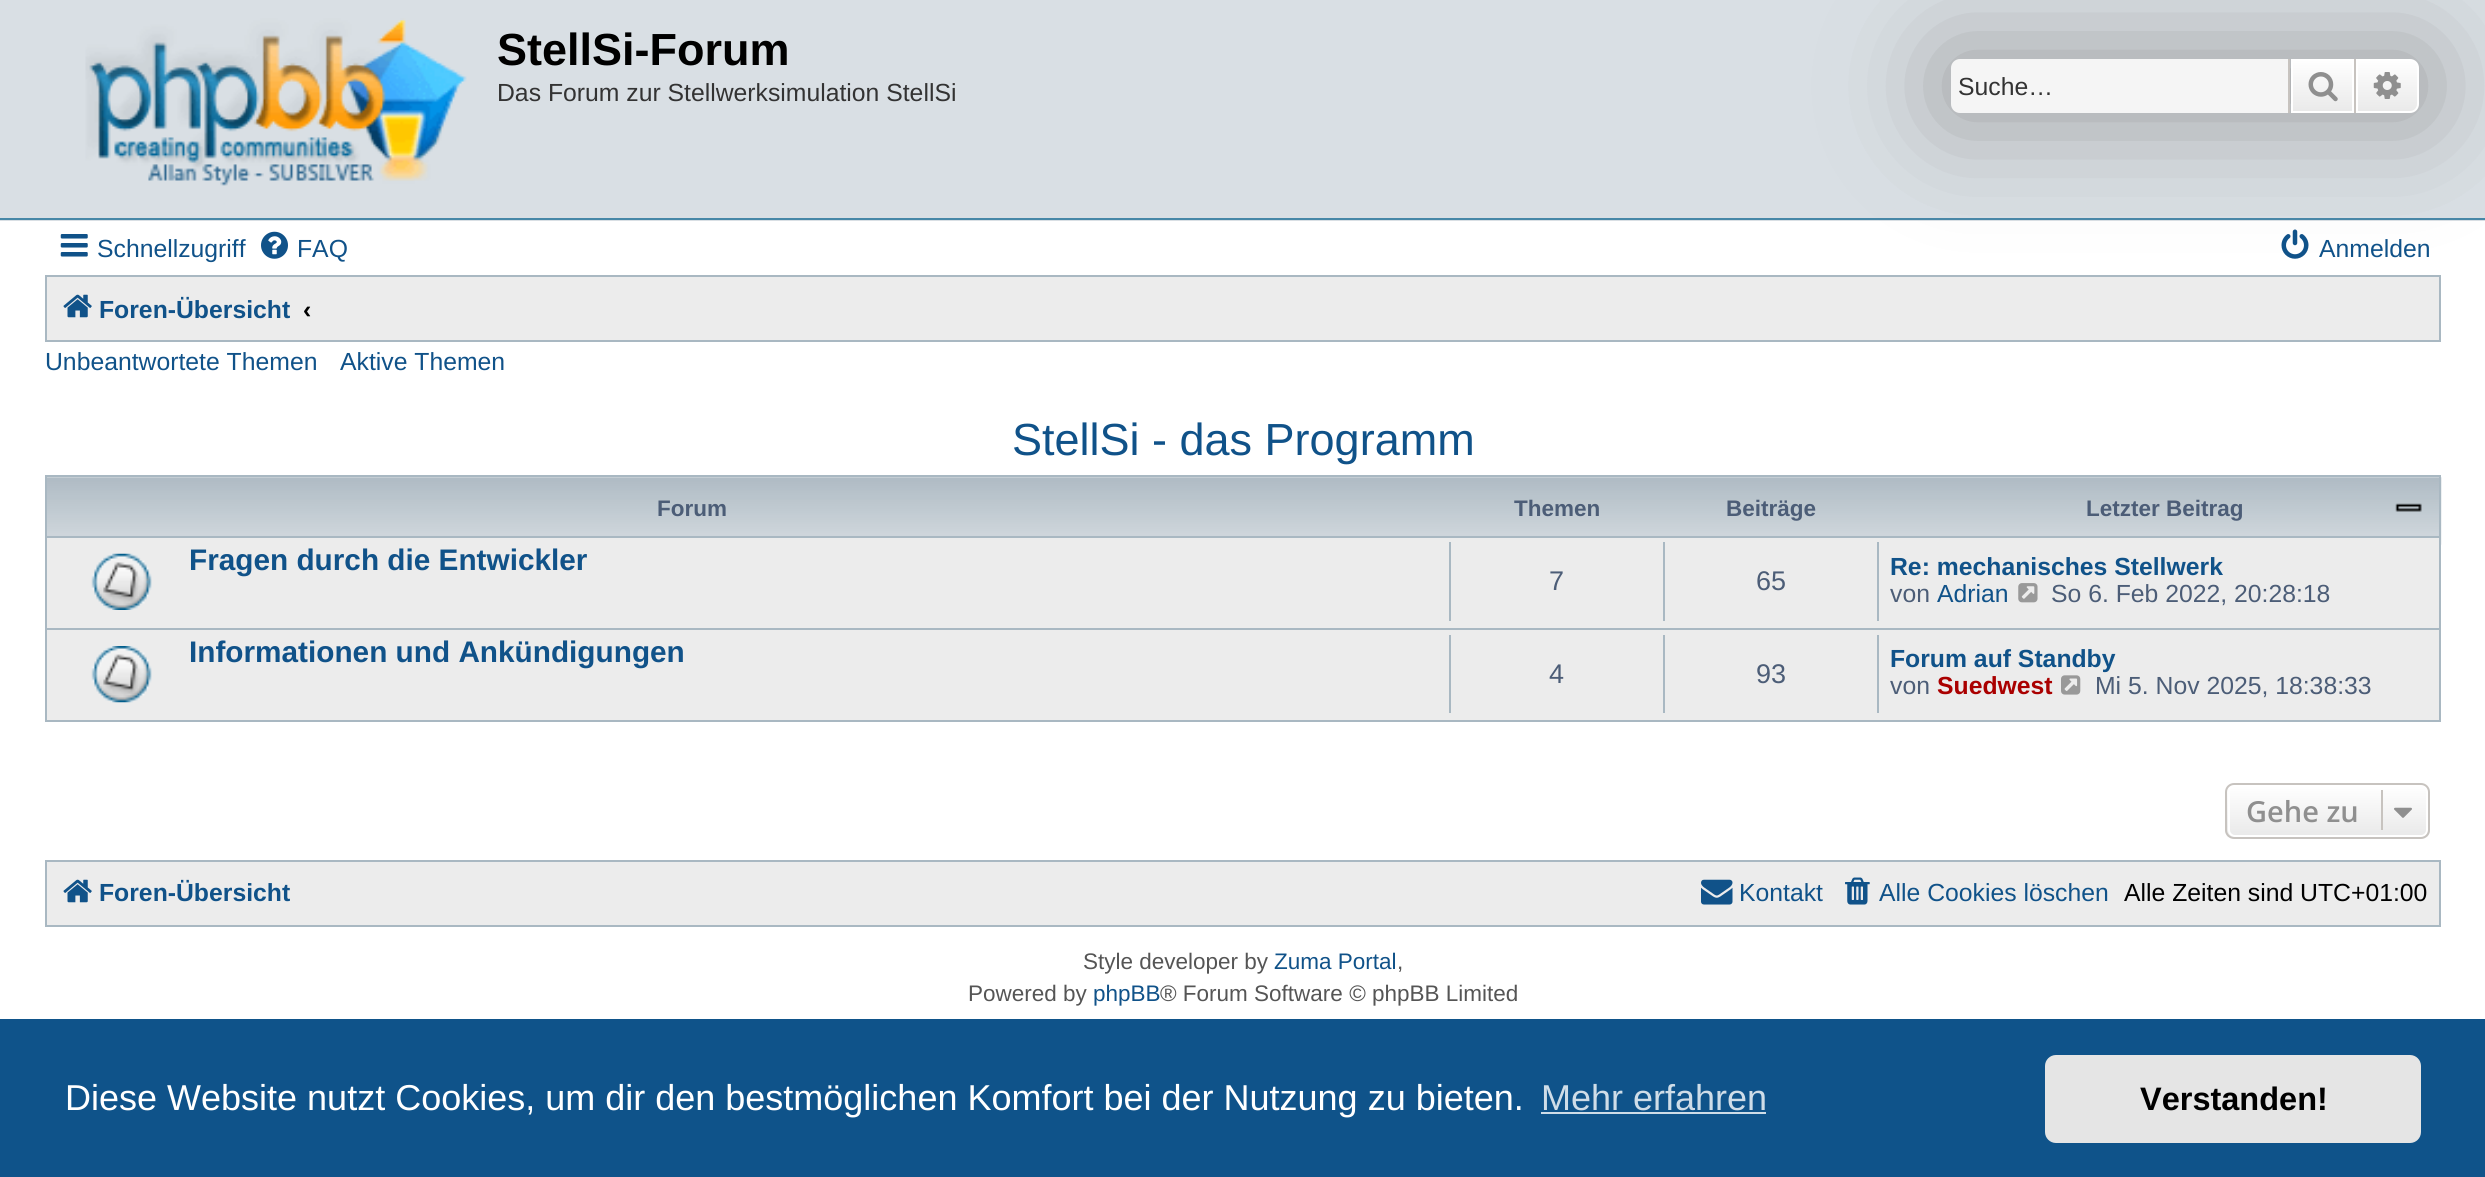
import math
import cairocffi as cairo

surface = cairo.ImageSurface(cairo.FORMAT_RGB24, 2485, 1177)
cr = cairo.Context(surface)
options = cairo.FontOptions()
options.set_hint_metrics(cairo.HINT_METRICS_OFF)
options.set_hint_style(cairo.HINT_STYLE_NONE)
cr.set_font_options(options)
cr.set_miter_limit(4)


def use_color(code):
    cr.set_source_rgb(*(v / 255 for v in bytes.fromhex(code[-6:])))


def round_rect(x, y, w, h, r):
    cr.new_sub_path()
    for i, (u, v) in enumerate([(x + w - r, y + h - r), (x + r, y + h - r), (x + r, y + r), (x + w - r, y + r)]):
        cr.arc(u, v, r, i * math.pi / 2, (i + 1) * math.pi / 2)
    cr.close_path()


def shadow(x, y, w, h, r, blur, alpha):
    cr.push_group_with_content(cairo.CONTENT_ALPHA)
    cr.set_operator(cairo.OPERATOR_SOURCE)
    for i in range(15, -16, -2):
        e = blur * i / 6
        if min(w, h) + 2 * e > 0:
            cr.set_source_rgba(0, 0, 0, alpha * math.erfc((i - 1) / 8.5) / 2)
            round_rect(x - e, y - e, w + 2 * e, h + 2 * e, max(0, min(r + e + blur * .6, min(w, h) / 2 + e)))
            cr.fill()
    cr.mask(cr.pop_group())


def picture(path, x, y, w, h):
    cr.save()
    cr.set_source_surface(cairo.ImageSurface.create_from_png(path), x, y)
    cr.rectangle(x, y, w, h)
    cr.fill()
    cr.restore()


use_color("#ffffff")
cr.paint()
use_color("#d9dfe4")
cr.rectangle(0, 0, 2485, 221)
cr.fill()
use_color("#4787a7")
cr.rectangle(0, 218, 2485, 2)
cr.fill()
picture("img1.png", 85, 18, 382, 168)
cr.select_font_face("Liberation Sans", cairo.FONT_SLANT_NORMAL, cairo.FONT_WEIGHT_BOLD)
cr.set_font_size(45)
use_color("#000000")
cr.move_to(497, 65)
cr.show_text("StellSi-Forum")
cr.select_font_face("Liberation Sans")
cr.set_font_size(24.75)
use_color("#333333")
cr.move_to(497, 101)
cr.show_text("Das Forum zur Stellwerksimulation StellSi")
use_color("#ececec")
cr.rectangle(46, 276, 2394, 65)
cr.fill_preserve()
use_color("#a9b8c2")
cr.stroke()
use_color("#999999")
shadow(1951, 59, 468, 54, 9, 56, 1)
use_color("#f5f5f5")
cr.new_path()
cr.move_to(1960, 59)
cr.line_to(2288, 59)
cr.line_to(2288, 113)
cr.line_to(1960, 113)
cr.curve_to(1955, 113, 1951, 109, 1951, 104)
cr.line_to(1951, 68)
cr.curve_to(1951, 63, 1955, 59, 1960, 59)
cr.close_path()
cr.fill()
use_color("#333333")
cr.move_to(1958, 95)
cr.show_text("Suche…")
gradient = cairo.LinearGradient(2322, 59, 2322, 113)
gradient.add_color_stop_rgba(0, 1, 1, 1, 1)
gradient.add_color_stop_rgba(1, 0.914, 0.914, 0.914, 1)
cr.set_source(gradient)
cr.rectangle(2293, 61, 59, 50)
cr.fill()
cr.rectangle(2292, 60, 61, 52)
use_color("#ffffff")
cr.stroke()
use_color("#c7c3bf")
cr.rectangle(2354, 59, 2, 54)
cr.fill()
cr.rectangle(2288, 59, 2, 54)
cr.fill()
picture("img2.png", 2308, 72, 30, 30)
gradient = cairo.LinearGradient(2387, 59, 2387, 113)
gradient.add_color_stop_rgba(0, 1, 1, 1, 1)
gradient.add_color_stop_rgba(1, 0.914, 0.914, 0.914, 1)
cr.set_source(gradient)
cr.new_path()
cr.move_to(2357, 60)
cr.line_to(2410, 60)
cr.curve_to(2414.5, 60, 2418, 63.5, 2418, 68)
cr.line_to(2418, 104)
cr.curve_to(2418, 108.5, 2414.5, 112, 2410, 112)
cr.line_to(2357, 112)
cr.close_path()
cr.fill_preserve()
use_color("#ffffff")
cr.stroke()
picture("img3.png", 2373, 72, 28, 27)
picture("img4.png", 60, 234, 28, 23)
use_color("#105289")
cr.move_to(97, 257)
cr.show_text("Schnellzugriff")
picture("img5.png", 261, 231, 27, 28)
cr.move_to(297, 257)
cr.show_text("FAQ")
picture("img6.png", 2281, 229, 28, 30)
cr.move_to(2319, 257)
cr.show_text("Anmelden")
picture("img7.png", 63, 294, 29, 24)
cr.select_font_face("Liberation Sans", cairo.FONT_SLANT_NORMAL, cairo.FONT_WEIGHT_BOLD)
cr.move_to(99, 318)
cr.show_text("Foren-Übersicht")
use_color("#000000")
cr.move_to(303, 318)
cr.show_text("‹")
cr.select_font_face("Liberation Sans")
use_color("#105289")
cr.move_to(45, 370)
cr.show_text("Unbeantwortete Themen")
cr.move_to(340, 370)
cr.show_text("Aktive Themen")
cr.set_font_size(45)
cr.move_to(1012, 455)
cr.show_text("StellSi - das Programm")
picture("img8.png", 47, 477, 2395, 68)
cr.rectangle(46, 476, 2394, 245)
use_color("#a9b8c2")
cr.stroke()
cr.select_font_face("Liberation Sans", cairo.FONT_SLANT_NORMAL, cairo.FONT_WEIGHT_BOLD)
cr.set_font_size(22.5)
use_color("#4c5d77")
cr.move_to(657, 516)
cr.show_text("Forum")
cr.move_to(1514, 516)
cr.show_text("Themen")
cr.move_to(1726, 516)
cr.show_text("Beiträge")
cr.move_to(2086, 516)
cr.show_text("Letzter Beitrag")
picture("img9.png", 2395, 503, 27, 9)
use_color("#ececec")
cr.rectangle(47, 538, 2392, 182)
cr.fill()
use_color("#a9b8c2")
cr.rectangle(47, 536, 2392, 2)
cr.fill()
picture("img10.png", 91, 553, 61, 57)
cr.set_font_size(29.75)
use_color("#105289")
cr.move_to(189, 570)
cr.show_text("Fragen durch die Entwickler")
use_color("#a9b8c2")
cr.rectangle(1449, 542, 2, 79)
cr.fill()
cr.select_font_face("Liberation Sans")
cr.set_font_size(27)
use_color("#4c5d77")
cr.move_to(1549, 590)
cr.show_text("7")
use_color("#a9b8c2")
cr.rectangle(1663, 542, 2, 79)
cr.fill()
use_color("#4c5d77")
cr.move_to(1756, 590)
cr.show_text("65")
use_color("#a9b8c2")
cr.rectangle(1877, 542, 2, 79)
cr.fill()
cr.select_font_face("Liberation Sans", cairo.FONT_SLANT_NORMAL, cairo.FONT_WEIGHT_BOLD)
cr.set_font_size(24.75)
use_color("#105289")
cr.move_to(1890, 575)
cr.show_text("Re: mechanisches Stellwerk")
cr.select_font_face("Liberation Sans")
use_color("#4c5d77")
cr.move_to(1890, 602)
cr.show_text("von")
use_color("#105289")
cr.move_to(1937, 602)
cr.show_text("Adrian")
picture("img11.png", 2018, 583, 20, 20)
use_color("#4c5d77")
cr.move_to(2051, 602)
cr.show_text("So 6. Feb 2022, 20:28:18")
use_color("#a9b8c2")
cr.rectangle(47, 628, 2392, 2)
cr.fill()
picture("img12.png", 91, 646, 61, 57)
cr.select_font_face("Liberation Sans", cairo.FONT_SLANT_NORMAL, cairo.FONT_WEIGHT_BOLD)
cr.set_font_size(29.75)
use_color("#105289")
cr.move_to(189, 662)
cr.show_text("Informationen und Ankündigungen")
use_color("#a9b8c2")
cr.rectangle(1449, 635, 2, 78)
cr.fill()
cr.select_font_face("Liberation Sans")
cr.set_font_size(27)
use_color("#4c5d77")
cr.move_to(1549, 683)
cr.show_text("4")
use_color("#a9b8c2")
cr.rectangle(1663, 635, 2, 78)
cr.fill()
use_color("#4c5d77")
cr.move_to(1756, 683)
cr.show_text("93")
use_color("#a9b8c2")
cr.rectangle(1877, 635, 2, 78)
cr.fill()
cr.select_font_face("Liberation Sans", cairo.FONT_SLANT_NORMAL, cairo.FONT_WEIGHT_BOLD)
cr.set_font_size(24.75)
use_color("#105289")
cr.move_to(1890, 667)
cr.show_text("Forum auf Standby")
cr.select_font_face("Liberation Sans")
use_color("#4c5d77")
cr.move_to(1890, 694)
cr.show_text("von")
cr.select_font_face("Liberation Sans", cairo.FONT_SLANT_NORMAL, cairo.FONT_WEIGHT_BOLD)
use_color("#aa0000")
cr.move_to(1937, 694)
cr.show_text("Suedwest")
picture("img13.png", 2061, 675, 20, 20)
cr.select_font_face("Liberation Sans")
use_color("#4c5d77")
cr.move_to(2095, 694)
cr.show_text("Mi 5. Nov 2025, 18:38:33")
cr.save()
round_rect(2225, 783, 205, 56, 9)
cr.clip()
gradient = cairo.LinearGradient(2328, 785, 2328, 837)
gradient.add_color_stop_rgba(0, 1, 1, 1, 1)
gradient.add_color_stop_rgba(1, 0.914, 0.914, 0.914, 1)
cr.set_source(gradient)
cr.rectangle(2225, 785, 205, 52)
cr.fill()
cr.restore()
round_rect(2229, 786, 198, 50, 6)
use_color("#ffffff")
cr.stroke()
round_rect(2226, 784, 203, 54, 8)
use_color("#c7c3bf")
cr.stroke()
cr.select_font_face("Open Sans SemiBold")
cr.set_font_size(29)
use_color("#8f8f8f")
cr.move_to(2246, 822)
cr.show_text("Gehe zu")
use_color("#c7c3bf")
cr.rectangle(2381, 790, 2, 40)
cr.fill()
picture("img14.png", 2394, 807, 18, 11)
use_color("#ececec")
cr.rectangle(46, 861, 2394, 65)
cr.fill_preserve()
use_color("#a9b8c2")
cr.stroke()
picture("img7.png", 63, 879, 29, 24)
cr.select_font_face("Liberation Sans", cairo.FONT_SLANT_NORMAL, cairo.FONT_WEIGHT_BOLD)
cr.set_font_size(24.75)
use_color("#105289")
cr.move_to(99, 901)
cr.show_text("Foren-Übersicht")
picture("img15.png", 1701, 879, 32, 26)
cr.select_font_face("Liberation Sans")
cr.move_to(1739, 901)
cr.show_text("Kontakt")
picture("img16.png", 1845, 877, 25, 28)
cr.move_to(1879, 901)
cr.show_text("Alle Cookies löschen")
use_color("#000000")
cr.move_to(2124, 901)
cr.show_text("Alle Zeiten sind UTC+01:00")
cr.set_font_size(22.5)
use_color("#555555")
cr.move_to(1083, 969)
cr.show_text("Style developer by")
use_color("#105289")
cr.move_to(1274, 969)
cr.show_text("Zuma Portal")
use_color("#555555")
cr.move_to(1397, 969)
cr.show_text(",")
cr.move_to(968, 1001)
cr.show_text("Powered by")
use_color("#105289")
cr.move_to(1093, 1001)
cr.show_text("phpBB")
use_color("#555555")
cr.move_to(1160, 1001)
cr.show_text("® Forum Software © phpBB Limited")
use_color("#0f538a")
cr.rectangle(0, 1019, 2485, 158)
cr.fill()
cr.set_font_size(36)
use_color("#ffffff")
cr.move_to(65, 1110)
cr.show_text("Diese Website nutzt Cookies, um dir den bestmöglichen Komfort bei der Nutzung zu bieten.")
use_color("#cfdde8")
cr.move_to(1541, 1110)
cr.show_text("Mehr erfahren")
cr.rectangle(1541, 1112, 225, 2)
cr.fill()
use_color("#e5e5e5")
round_rect(2045, 1055, 376, 88, 11)
cr.fill()
cr.select_font_face("Liberation Sans", cairo.FONT_SLANT_NORMAL, cairo.FONT_WEIGHT_BOLD)
cr.set_font_size(32.5)
use_color("#000000")
cr.move_to(2140, 1110)
cr.show_text("Verstanden!")
surface.write_to_png("result.png")
